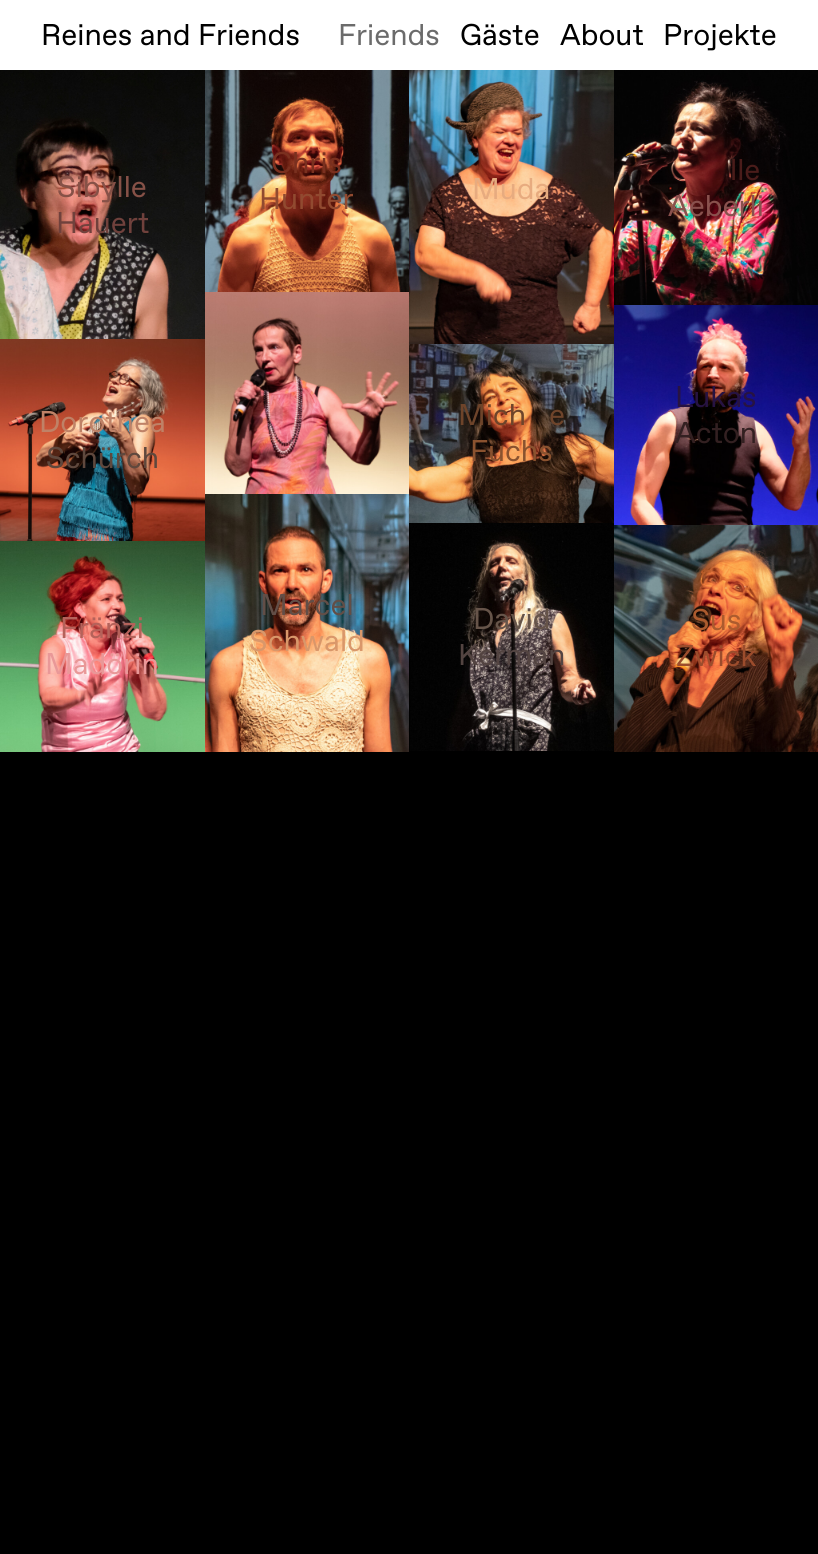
import math
import cairocffi as cairo

surface = cairo.ImageSurface(cairo.FORMAT_RGB24, 818, 1554)
cr = cairo.Context(surface)
options = cairo.FontOptions()
options.set_hint_metrics(cairo.HINT_METRICS_OFF)
options.set_hint_style(cairo.HINT_STYLE_NONE)
cr.set_font_options(options)
cr.set_miter_limit(4)


def use_color(code):
    cr.set_source_rgb(*(v / 255 for v in bytes.fromhex(code[-6:])))


def picture(path, x, y, w, h):
    cr.save()
    cr.set_source_surface(cairo.ImageSurface.create_from_png(path), x, y)
    cr.rectangle(x, y, w, h)
    cr.fill()
    cr.restore()


use_color("#000000")
cr.paint()
use_color("#ffffff")
cr.rectangle(0, 0, 818, 70)
cr.fill()
cr.select_font_face("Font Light")
cr.set_font_size(30)
use_color("#000000")
cr.move_to(41, 45)
cr.show_text("Reines and Friends")
use_color("#6b6b6b")
cr.move_to(338, 45)
cr.show_text("Friends")
use_color("#000000")
cr.move_to(460, 45)
cr.show_text("Gäste")
cr.move_to(560, 45)
cr.show_text("About")
cr.move_to(663, 45)
cr.show_text("Projekte")
picture("img1.png", 0, 70, 205, 269)
use_color("#865147")
cr.move_to(57, 197)
cr.show_text("Sibylle")
use_color("#70413c")
cr.move_to(56, 233)
cr.show_text("Hauert")
picture("img2.png", 0, 339, 205, 202)
use_color("#bf8267")
cr.move_to(39, 432)
cr.show_text("Dorothea")
use_color("#5f483d")
cr.move_to(46, 468)
cr.show_text("Schürch")
picture("img3.png", 0, 541, 205, 211)
use_color("#b5625a")
cr.move_to(60, 638)
cr.show_text("Fränzi")
use_color("#e99898")
cr.move_to(45, 674)
cr.show_text("Madörin")
picture("img4.png", 205, 70, 204, 222)
use_color("#7a301f")
cr.move_to(271, 173)
cr.show_text("Chris")
use_color("#914a30")
cr.move_to(259, 209)
cr.show_text("Hunter")
picture("img5.png", 205, 292, 204, 202)
picture("img6.png", 205, 494, 204, 258)
use_color("#624e47")
cr.move_to(260, 615)
cr.show_text("Marcel")
use_color("#d9976a")
cr.move_to(249, 651)
cr.show_text("Schwald")
picture("img7.png", 409, 70, 205, 274)
use_color("#e7ab7f")
cr.move_to(472, 199)
cr.show_text("Muda")
picture("img8.png", 409, 344, 205, 179)
use_color("#6e442a")
cr.move_to(458, 425)
cr.show_text("Mich")
cr.move_to(549, 425)
cr.show_text("e")
use_color("#8a522f")
cr.move_to(470, 461)
cr.show_text("Fuchs")
picture("img9.png", 410, 523, 204, 228)
use_color("#665449")
cr.move_to(473, 629)
cr.show_text("David")
use_color("#534441")
cr.move_to(458, 665)
cr.show_text("Kerman")
picture("img10.png", 614, 70, 204, 235)
use_color("#4a1c1a")
cr.move_to(730, 180)
cr.show_text("lle")
use_color("#89514d")
cr.move_to(668, 216)
cr.show_text("Aeberli")
picture("img11.png", 614, 305, 204, 220)
use_color("#271342")
cr.move_to(675, 407)
cr.show_text("Lukas")
use_color("#332021")
cr.move_to(675, 443)
cr.show_text("Acton")
picture("img12.png", 614, 525, 204, 227)
use_color("#ac5b2e")
cr.move_to(691, 630)
cr.show_text("Sus")
use_color("#9c4c2c")
cr.move_to(676, 666)
cr.show_text("Zwick")
surface.write_to_png("result.png")
